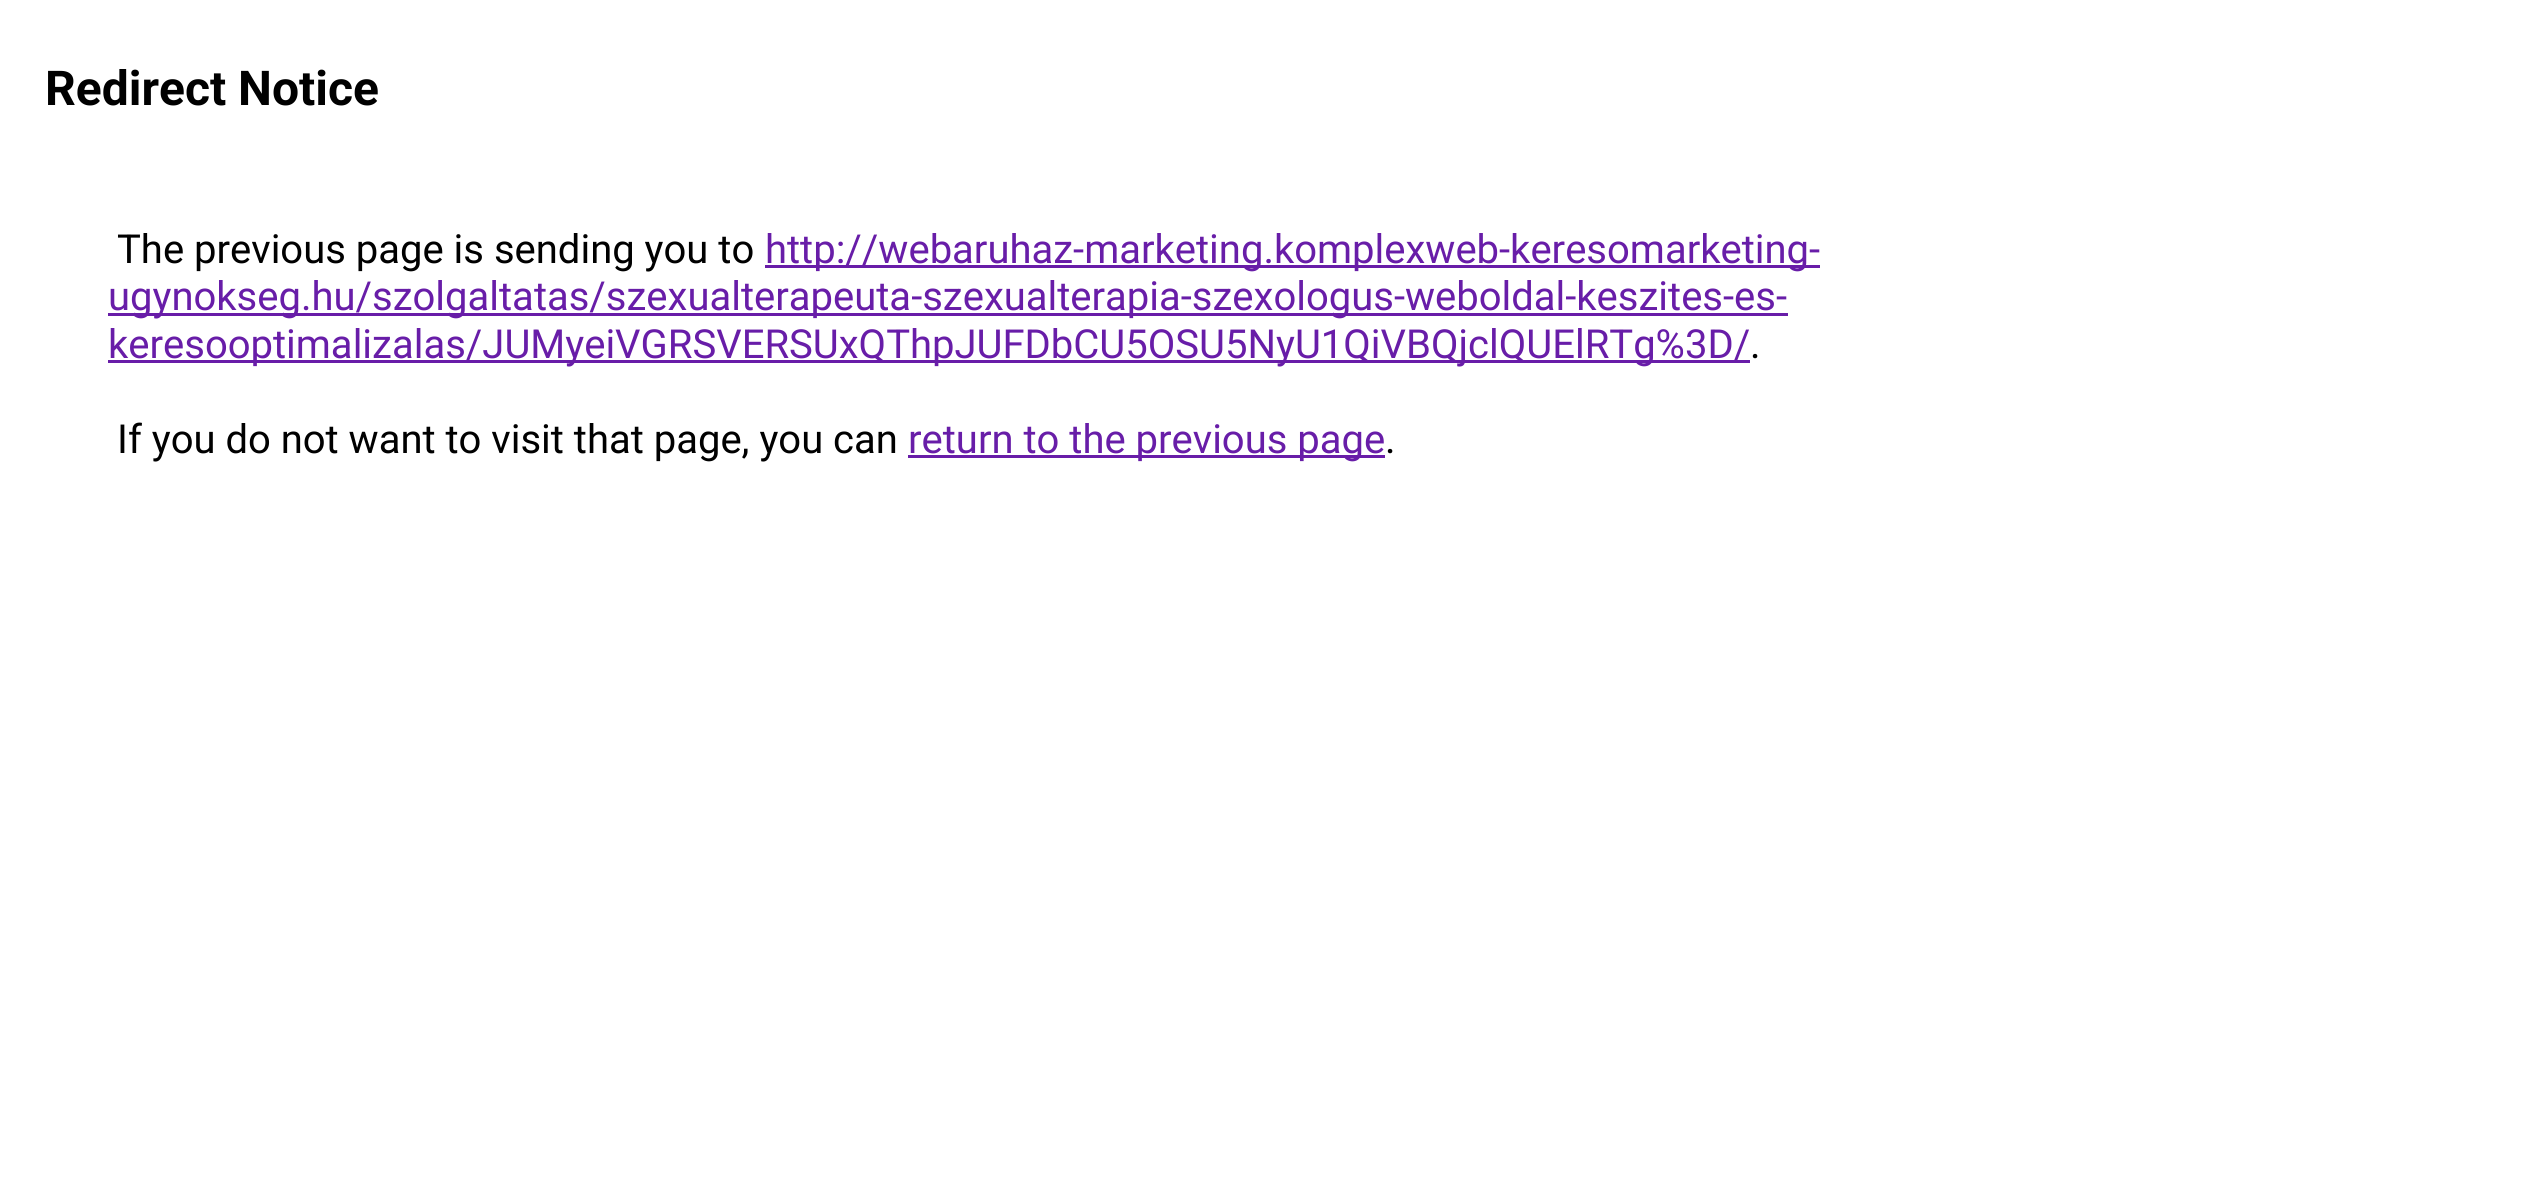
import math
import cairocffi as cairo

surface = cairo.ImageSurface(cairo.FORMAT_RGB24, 2542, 1189)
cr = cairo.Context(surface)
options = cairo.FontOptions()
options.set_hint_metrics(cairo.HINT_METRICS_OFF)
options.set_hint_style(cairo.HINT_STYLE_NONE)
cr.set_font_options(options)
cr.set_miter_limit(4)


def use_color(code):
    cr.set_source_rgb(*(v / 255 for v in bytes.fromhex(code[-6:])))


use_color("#ffffff")
cr.paint()
cr.select_font_face("Roboto", cairo.FONT_SLANT_NORMAL, cairo.FONT_WEIGHT_BOLD)
cr.set_font_size(48)
use_color("#000000")
cr.move_to(45, 105)
cr.show_text("Redirect Notice")
cr.select_font_face("Roboto")
cr.set_font_size(40)
cr.move_to(117, 263)
cr.show_text("The previous page is sending you to")
use_color("#681da8")
cr.rectangle(765, 265, 1055, 3)
cr.fill()
cr.move_to(765, 263)
cr.show_text("http://webaruhaz-marketing.komplexweb-keresomarketing-")
cr.rectangle(108, 313, 1680, 3)
cr.fill()
cr.move_to(108, 310)
cr.show_text("ugynokseg.hu/szolgaltatas/szexualterapeuta-szexualterapia-szexologus-weboldal-keszites-es-")
cr.rectangle(108, 360, 1642, 3)
cr.fill()
cr.move_to(108, 358)
cr.show_text("keresooptimalizalas/JUMyeiVGRSVERSUxQThpJUFDbCU5OSU5NyU1QiVBQjclQUElRTg%3D/")
use_color("#000000")
cr.move_to(1750, 358)
cr.show_text(".")
cr.move_to(117, 453)
cr.show_text("If you do not want to visit that page, you can")
use_color("#681da8")
cr.rectangle(908, 455, 477, 3)
cr.fill()
cr.move_to(908, 453)
cr.show_text("return to the previous page")
use_color("#000000")
cr.move_to(1385, 453)
cr.show_text(".")
surface.write_to_png("result.png")
